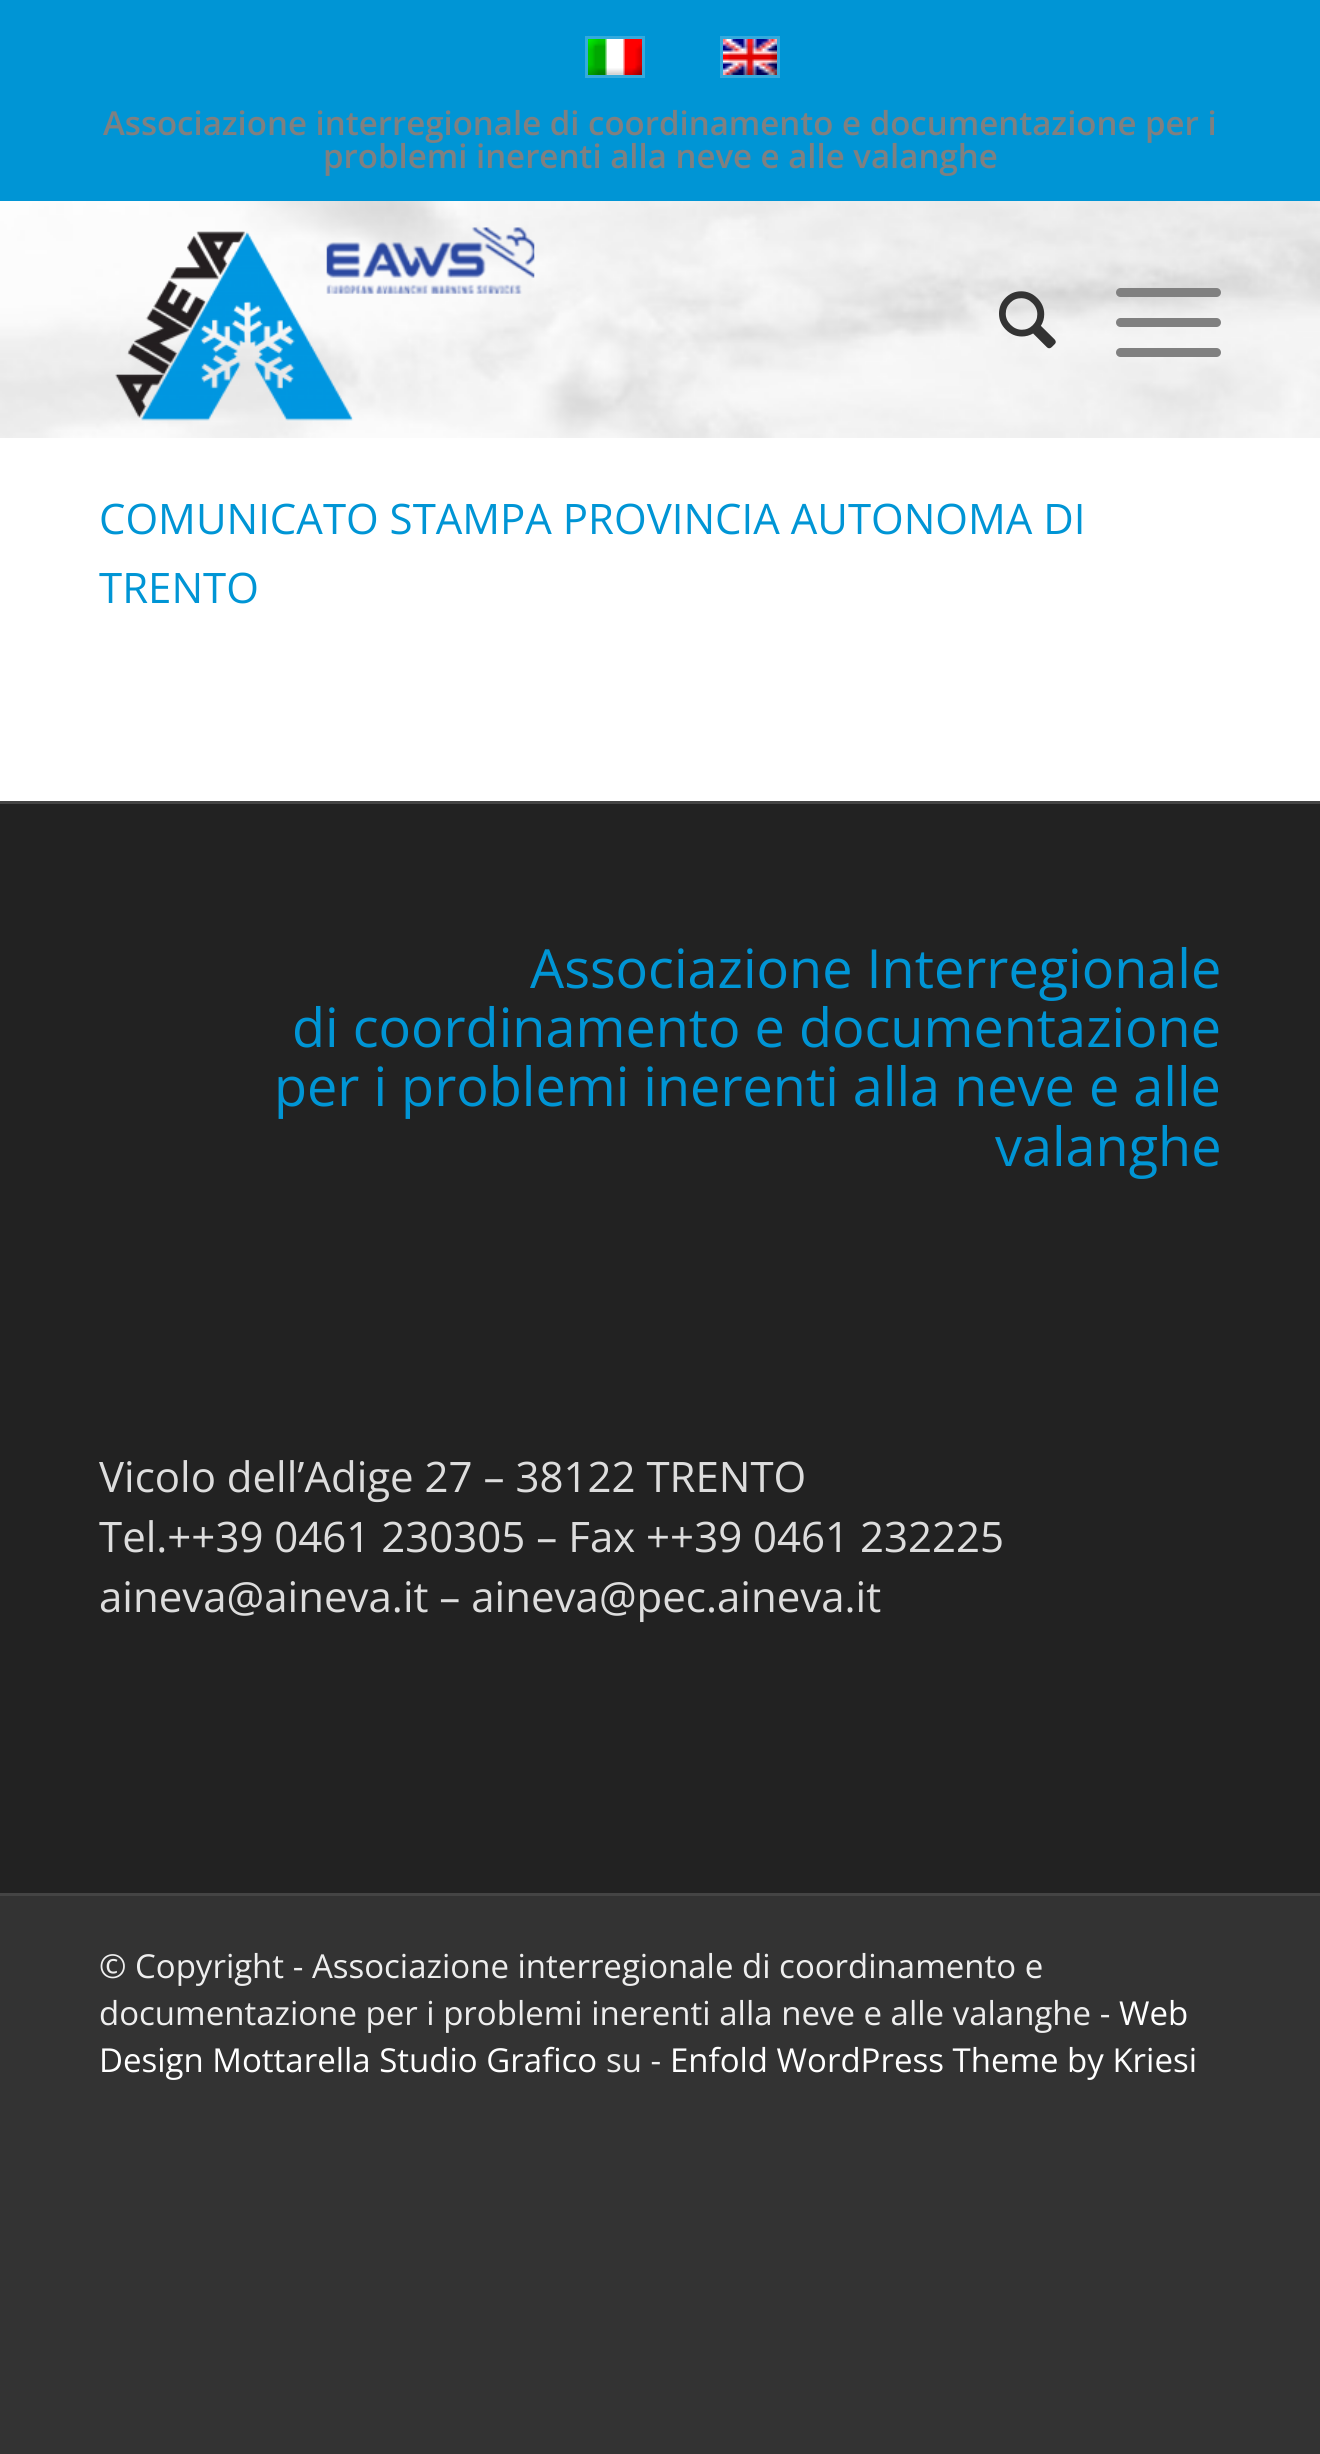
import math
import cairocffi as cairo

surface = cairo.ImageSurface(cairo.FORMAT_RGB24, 1320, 2454)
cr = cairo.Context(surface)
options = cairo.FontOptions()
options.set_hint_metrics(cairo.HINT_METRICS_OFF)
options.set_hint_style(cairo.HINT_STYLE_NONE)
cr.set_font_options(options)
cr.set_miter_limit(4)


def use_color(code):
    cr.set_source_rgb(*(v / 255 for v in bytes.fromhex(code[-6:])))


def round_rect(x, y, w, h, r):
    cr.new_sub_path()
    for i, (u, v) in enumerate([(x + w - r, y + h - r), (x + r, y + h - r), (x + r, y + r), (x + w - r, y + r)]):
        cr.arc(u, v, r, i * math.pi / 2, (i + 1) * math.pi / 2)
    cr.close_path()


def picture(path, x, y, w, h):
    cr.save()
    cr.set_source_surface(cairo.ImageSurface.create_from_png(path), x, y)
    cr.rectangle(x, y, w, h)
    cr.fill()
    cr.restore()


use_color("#333333")
cr.paint()
use_color("#0095d5")
cr.rectangle(0, 0, 1320, 201)
cr.fill()
cr.rectangle(586.5, 37.5, 57, 39)
use_color("#33aadd")
cr.set_line_width(3)
cr.stroke()
picture("img1.png", 588, 39, 54, 36)
cr.rectangle(721.5, 37.5, 57, 39)
cr.stroke()
picture("img2.png", 723, 39, 54, 36)
cr.select_font_face("Open Sans SemiBold")
cr.set_font_size(33)
use_color("#808080")
cr.move_to(103, 135)
cr.show_text("Associazione interregionale di coordinamento e documentazione per i")
cr.move_to(323, 168)
cr.show_text("problemi inerenti alla neve e alle valanghe")
picture("img3.png", 0, 201, 1320, 237)
picture("img4.png", 115, 227, 420, 194)
picture("img5.png", 999, 291, 57, 58)
round_rect(1116, 318, 105, 9, 4.5)
cr.fill()
round_rect(1116, 288, 105, 9, 4.5)
cr.fill()
round_rect(1116, 348, 105, 9, 4.5)
cr.fill()
use_color("#ffffff")
cr.rectangle(0, 438, 1320, 363)
cr.fill()
cr.select_font_face("Open Sans")
cr.set_font_size(42)
use_color("#0095d5")
cr.move_to(99, 534)
cr.show_text("COMUNICATO STAMPA PROVINCIA AUTONOMA DI")
cr.move_to(99, 603)
cr.show_text("TRENTO")
use_color("#222222")
cr.rectangle(0, 804, 1320, 1089)
cr.fill()
use_color("#444444")
cr.rectangle(0, 801, 1320, 3)
cr.fill()
cr.set_font_size(54)
use_color("#0095d5")
cr.move_to(530, 988)
cr.show_text("Associazione Interregionale")
cr.move_to(292, 1047)
cr.show_text("di coordinamento e documentazione")
cr.move_to(274, 1106)
cr.show_text("per i problemi inerenti alla neve e alle")
cr.move_to(995, 1166)
cr.show_text("valanghe")
cr.set_font_size(42)
use_color("#dddddd")
cr.move_to(99, 1492)
cr.show_text("Vicolo dell’Adige 27 – 38122 TRENTO")
cr.move_to(99, 1552)
cr.show_text("Tel.++39 0461 230305 – Fax ++39 0461 232225")
cr.move_to(99, 1612)
cr.show_text("aineva@aineva.it – aineva@pec.aineva.it")
use_color("#444444")
cr.rectangle(0, 1893, 1320, 3)
cr.fill()
cr.set_font_size(33)
use_color("#eeeeee")
cr.move_to(99, 1978)
cr.show_text("© Copyright - Associazione interregionale di coordinamento e")
cr.move_to(99, 2025)
cr.show_text("documentazione per i problemi inerenti alla neve e alle valanghe -")
use_color("#ffffff")
cr.move_to(1119, 2025)
cr.show_text("Web")
cr.move_to(99, 2072)
cr.show_text("Design Mottarella Studio Grafico")
use_color("#eeeeee")
cr.move_to(606, 2072)
cr.show_text("su -")
use_color("#ffffff")
cr.move_to(670, 2072)
cr.show_text("Enfold WordPress Theme by Kriesi")
surface.write_to_png("result.png")
